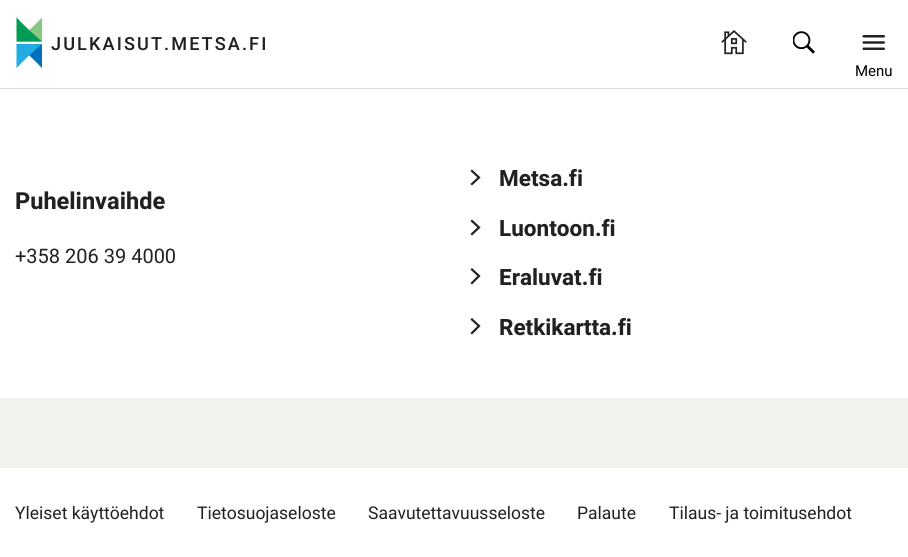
import math
import cairocffi as cairo

surface = cairo.ImageSurface(cairo.FORMAT_RGB24, 908, 557)
cr = cairo.Context(surface)
options = cairo.FontOptions()
options.set_hint_metrics(cairo.HINT_METRICS_OFF)
options.set_hint_style(cairo.HINT_STYLE_NONE)
cr.set_font_options(options)
cr.set_miter_limit(4)


def use_color(code):
    cr.set_source_rgb(*(v / 255 for v in bytes.fromhex(code[-6:])))


def spaced_text(x, y, s, letter, word):
    cr.move_to(x, y)
    for ch in s:
        cr.show_text(ch)
        cr.rel_move_to(letter + word * (ch == ' '), 0)


def picture(path, x, y, w, h):
    cr.save()
    cr.set_source_surface(cairo.ImageSurface.create_from_png(path), x, y)
    cr.rectangle(x, y, w, h)
    cr.fill()
    cr.restore()


use_color("#ffffff")
cr.paint()
use_color("#d8d8d8")
cr.rectangle(0, 88, 908, 1)
cr.fill()
picture("img1.png", 16, 17, 26, 51)
cr.select_font_face("Heebo Medium")
cr.set_font_size(18.1)
use_color("#212121")
spaced_text(51, 50, "JULKAISUT.METSA.FI", 2.1, 0)
picture("img2.png", 721, 30, 26, 25)
picture("img3.png", 793, 31, 22, 23)
picture("img4.png", 862, 35, 23, 15)
cr.select_font_face("Heebo")
cr.set_font_size(15)
use_color("#000000")
cr.move_to(855, 76)
cr.show_text("Menu")
cr.select_font_face("Heebo", cairo.FONT_SLANT_NORMAL, cairo.FONT_WEIGHT_BOLD)
cr.set_font_size(23.5)
use_color("#212121")
cr.move_to(15, 209)
cr.show_text("Puhelinvaihde")
cr.select_font_face("Heebo")
cr.set_font_size(20)
cr.move_to(15, 263)
cr.show_text("+358 206 39 4000")
cr.new_path()
cr.move_to(472, 184)
cr.line_to(479, 177.5)
cr.line_to(472, 171)
cr.set_line_width(2.2)
cr.set_line_cap(cairo.LINE_CAP_SQUARE)
cr.stroke()
cr.select_font_face("Heebo", cairo.FONT_SLANT_NORMAL, cairo.FONT_WEIGHT_BOLD)
cr.set_font_size(22.5)
cr.move_to(499, 186)
cr.show_text("Metsa.fi")
cr.new_path()
cr.move_to(472, 234)
cr.line_to(479, 227.5)
cr.line_to(472, 221)
cr.stroke()
cr.move_to(499, 236)
cr.show_text("Luontoon.fi")
cr.new_path()
cr.move_to(472, 283)
cr.line_to(479, 276)
cr.line_to(472, 269.5)
cr.stroke()
cr.move_to(499, 285)
cr.show_text("Eraluvat.fi")
cr.new_path()
cr.move_to(472, 333)
cr.line_to(479, 326)
cr.line_to(472, 319.5)
cr.stroke()
cr.move_to(499, 335)
cr.show_text("Retkikartta.fi")
use_color("#f4f2ef")
cr.rectangle(0, 398, 908, 70)
cr.fill()
cr.select_font_face("Heebo")
cr.set_font_size(17.5)
use_color("#212121")
cr.move_to(15, 519)
cr.show_text("Yleiset käyttöehdot")
cr.move_to(197, 519)
cr.show_text("Tietosuojaseloste")
cr.move_to(368, 519)
cr.show_text("Saavutettavuusseloste")
cr.move_to(577, 519)
cr.show_text("Palaute")
cr.move_to(669, 519)
cr.show_text("Tilaus- ja toimitusehdot")
surface.write_to_png("result.png")
